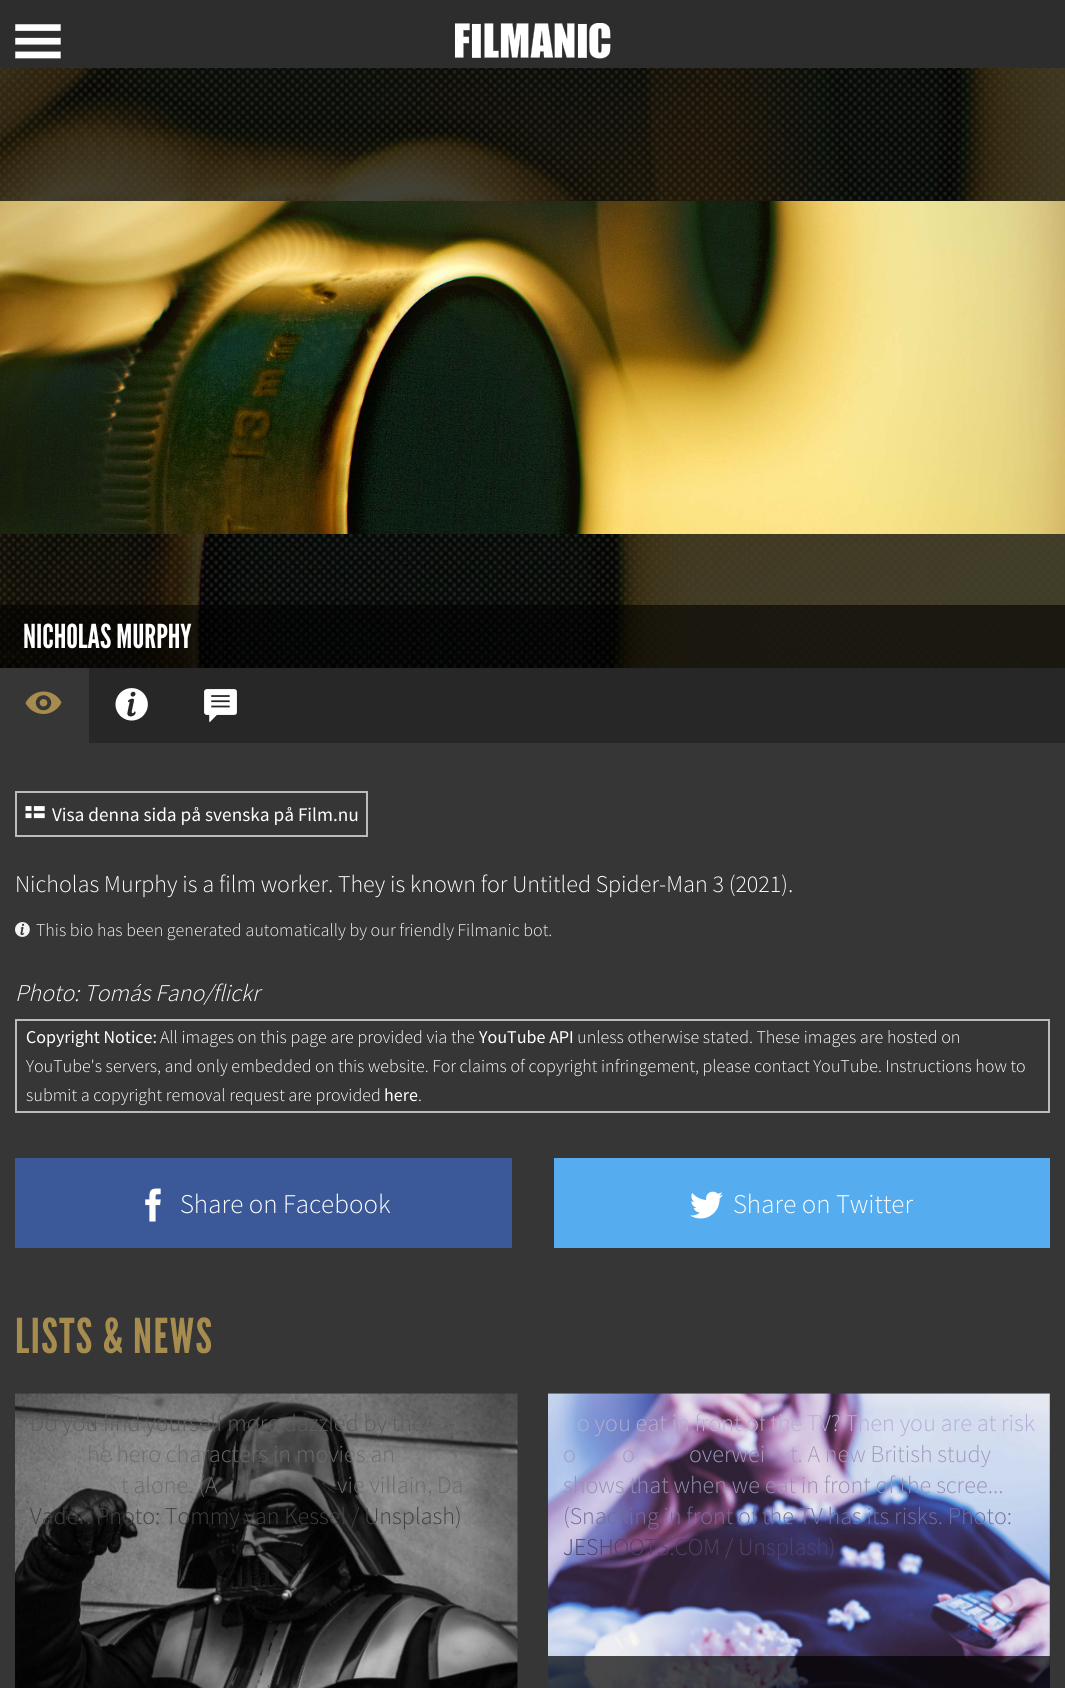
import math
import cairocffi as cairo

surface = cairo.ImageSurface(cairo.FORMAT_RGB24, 1065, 1688)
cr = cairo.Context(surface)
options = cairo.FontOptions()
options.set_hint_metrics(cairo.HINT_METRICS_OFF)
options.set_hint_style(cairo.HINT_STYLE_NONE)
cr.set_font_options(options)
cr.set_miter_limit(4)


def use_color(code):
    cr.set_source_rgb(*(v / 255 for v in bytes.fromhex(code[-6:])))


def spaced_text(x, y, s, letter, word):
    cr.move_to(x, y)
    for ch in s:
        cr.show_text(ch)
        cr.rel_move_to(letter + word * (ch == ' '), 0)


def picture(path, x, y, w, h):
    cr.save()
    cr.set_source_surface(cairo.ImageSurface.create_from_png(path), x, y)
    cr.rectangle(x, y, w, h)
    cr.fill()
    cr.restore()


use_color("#272727")
cr.paint()
use_color("#2d2d2d")
cr.rectangle(0, 0, 1065, 68)
cr.fill()
picture("img1.png", 15, 24, 46, 35)
picture("img2.png", 455, 23, 156, 36)
picture("img3.png", 0, 68, 1065, 600)
picture("img4.png", 0, 68, 1065, 600)
picture("img5.png", 0, 201, 1065, 333)
cr.set_source_rgba(0, 0, 0, 0.6)
cr.rectangle(0, 605, 1065, 63)
cr.fill()
cr.select_font_face("League Gothic")
cr.set_font_size(33)
use_color("#ffffff")
cr.move_to(23, 648)
cr.show_text("NICHOLAS MURPHY")
use_color("#363636")
cr.rectangle(0, 668, 89, 75)
cr.fill()
picture("img6.png", 25, 691, 37, 23)
picture("img7.png", 115, 688, 33, 33)
picture("img8.png", 204, 689, 33, 33)
cr.rectangle(0, 743, 1065, 945)
cr.fill()
cr.rectangle(16, 792, 351, 44)
use_color("#bbbbbb")
cr.stroke()
picture("img9.png", 25, 806, 20, 13)
cr.select_font_face("Source Sans Pro")
cr.set_font_size(19.25)
use_color("#ffffff")
cr.move_to(52, 821)
cr.show_text("Visa denna sida på svenska på Film.nu")
cr.select_font_face("Source Sans Pro Light")
cr.set_font_size(24)
cr.move_to(15, 892)
cr.show_text("Nicholas Murphy is a film worker. They is known for Untitled Spider-Man 3 (2021).")
picture("img10.png", 15, 922, 15, 15)
cr.set_font_size(18)
use_color("#f3f3f3")
cr.move_to(36, 936)
cr.show_text("This bio has been generated automatically by our friendly Filmanic bot.")
cr.select_font_face("Source Sans Pro Light", cairo.FONT_SLANT_ITALIC)
cr.set_font_size(24)
use_color("#ffffff")
cr.move_to(15, 1001)
cr.show_text("Photo: Tomás Fano/flickr")
cr.rectangle(16, 1020, 1033, 92)
use_color("#bbbbbb")
cr.stroke()
cr.select_font_face("Source Sans Pro")
cr.set_font_size(18)
use_color("#ffffff")
cr.move_to(26, 1043)
cr.show_text("Copyright Notice:")
cr.select_font_face("Source Sans Pro Light")
cr.move_to(160, 1043)
cr.show_text("All images on this page are provided via the")
cr.select_font_face("Source Sans Pro")
cr.move_to(479, 1043)
cr.show_text("YouTube API")
cr.select_font_face("Source Sans Pro Light")
cr.move_to(577, 1043)
cr.show_text("unless otherwise stated. These images are hosted on")
cr.move_to(26, 1072)
cr.show_text("YouTube's servers, and only embedded on this website. For claims of copyright infringement, please contact YouTube. Instructions how to")
cr.move_to(26, 1101)
cr.show_text("submit a copyright removal request are provided")
cr.select_font_face("Source Sans Pro")
cr.move_to(384, 1101)
cr.show_text("here")
cr.select_font_face("Source Sans Pro Light")
cr.move_to(418, 1101)
cr.show_text(".")
use_color("#3b5998")
cr.rectangle(15, 1158, 497, 90)
cr.fill()
picture("img11.png", 145, 1188, 16, 34)
cr.set_font_size(27)
use_color("#ffffff")
cr.move_to(180, 1213)
cr.show_text("Share on Facebook")
use_color("#55acee")
cr.rectangle(554, 1158, 496, 90)
cr.fill()
picture("img12.png", 690, 1191, 33, 28)
use_color("#ffffff")
cr.move_to(733, 1213)
cr.show_text("Share on Twitter")
cr.select_font_face("League Gothic")
cr.set_font_size(48)
use_color("#a68c4e")
spaced_text(15, 1353, "LISTS & NEWS", 1.5, 0)
picture("img13.png", 15, 1393, 503, 295)
cr.select_font_face("Source Sans Pro Light")
cr.set_font_size(24)
use_color("#5c5c5c")
cr.move_to(30, 1431)
cr.show_text("Do you find yourself more dazzled by the")
use_color("#6a6a6a")
cr.move_to(87, 1462)
cr.show_text("he hero characters in movies an")
cr.move_to(121, 1493)
cr.show_text("t alone. (A")
cr.move_to(337, 1493)
cr.show_text("vie villain, Da")
use_color("#414141")
cr.move_to(30, 1524)
cr.show_text("Vader. Photo: Tommy van Kessel / Unsplash)")
picture("img14.png", 548, 1393, 502, 295)
use_color("#b4add2")
cr.move_to(577, 1431)
cr.show_text("o you eat in front of the TV? Then you are at risk")
use_color("#a19abd")
cr.move_to(563, 1462)
cr.show_text("o")
cr.move_to(622, 1462)
cr.show_text("o")
cr.move_to(689, 1462)
cr.show_text("overwei")
cr.move_to(790, 1462)
cr.show_text("t. A new British study")
use_color("#9690b2")
cr.move_to(563, 1493)
cr.show_text("shows that when we eat in front of the scree...")
use_color("#736ea0")
cr.move_to(563, 1524)
cr.show_text("(Snacking in front of the TV has its risks. Photo:")
use_color("#51426c")
cr.move_to(563, 1555)
cr.show_text("JESHOOTS.COM / Unsplash)")
cr.set_source_rgba(0, 0, 0, 0.7)
cr.rectangle(548, 1656, 502, 32)
cr.fill()
surface.write_to_png("result.png")
